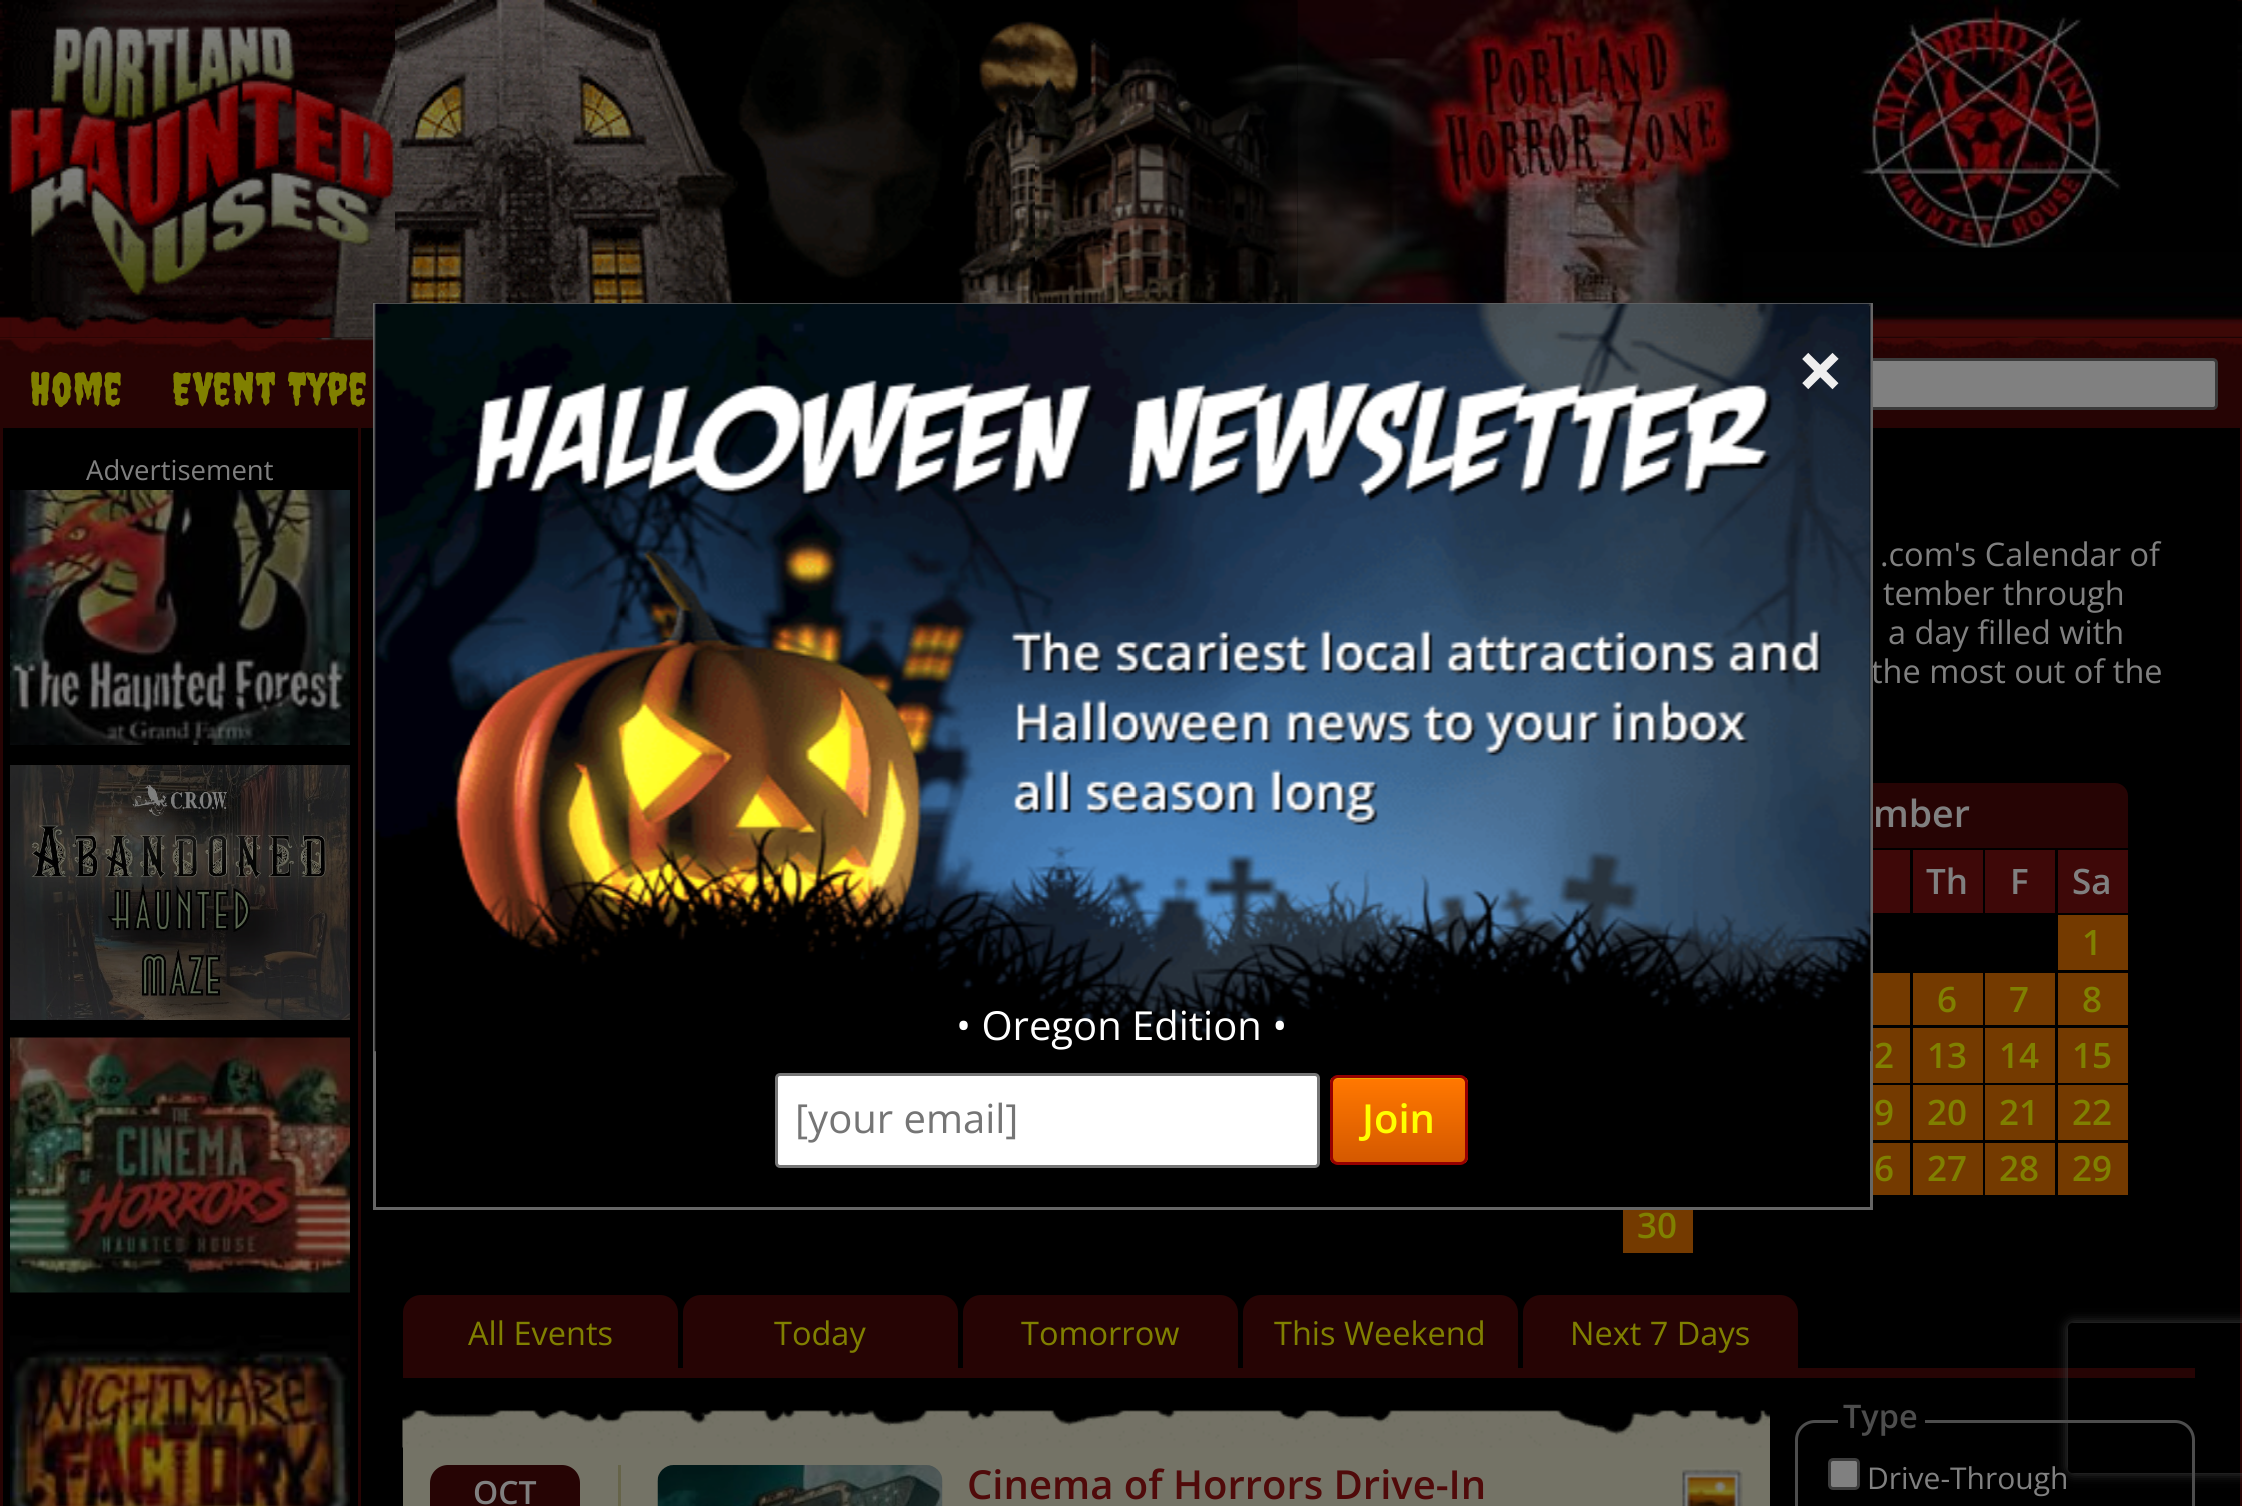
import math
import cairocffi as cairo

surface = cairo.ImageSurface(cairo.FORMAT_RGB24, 2242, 1506)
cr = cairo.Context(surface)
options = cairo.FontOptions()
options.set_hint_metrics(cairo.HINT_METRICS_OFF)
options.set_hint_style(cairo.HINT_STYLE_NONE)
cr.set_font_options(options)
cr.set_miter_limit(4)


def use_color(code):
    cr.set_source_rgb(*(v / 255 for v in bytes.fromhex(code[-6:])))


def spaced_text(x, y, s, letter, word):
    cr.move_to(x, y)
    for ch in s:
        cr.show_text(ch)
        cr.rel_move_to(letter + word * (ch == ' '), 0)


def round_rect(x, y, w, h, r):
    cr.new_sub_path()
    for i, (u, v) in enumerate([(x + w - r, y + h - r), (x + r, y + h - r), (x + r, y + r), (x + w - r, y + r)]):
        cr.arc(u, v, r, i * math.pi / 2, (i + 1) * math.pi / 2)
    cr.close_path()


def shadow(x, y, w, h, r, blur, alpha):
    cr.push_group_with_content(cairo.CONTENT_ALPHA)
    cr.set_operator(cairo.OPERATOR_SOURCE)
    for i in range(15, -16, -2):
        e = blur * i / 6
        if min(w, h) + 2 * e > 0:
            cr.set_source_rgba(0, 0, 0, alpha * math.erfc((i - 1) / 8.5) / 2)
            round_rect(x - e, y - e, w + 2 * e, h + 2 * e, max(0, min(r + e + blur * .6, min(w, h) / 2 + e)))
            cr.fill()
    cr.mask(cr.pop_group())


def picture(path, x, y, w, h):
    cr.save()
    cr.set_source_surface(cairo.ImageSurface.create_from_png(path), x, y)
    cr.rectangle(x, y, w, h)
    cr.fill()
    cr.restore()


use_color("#ffffff")
cr.paint()
picture("img1.png", 0, 337, 2242, 1)
use_color("#260404")
cr.rectangle(0, 357, 2242, 71)
cr.fill()
picture("img10.png", 0, 337, 2242, 21)
picture("img3.png", 0, 0, 2242, 338)
picture("img4.png", 0, 0, 395, 338)
use_color("#808080")
round_rect(1719.5, 359.5, 497, 49, 3.5)
cr.fill_preserve()
use_color("#3b3b3b")
cr.set_line_width(3)
cr.stroke()
use_color("#000000")
cr.rectangle(3, 428, 2237, 1078)
cr.fill()
use_color("#260404")
cr.new_path()
cr.move_to(1636, 783)
cr.line_to(2115, 783)
cr.curve_to(2122, 783, 2128, 789, 2128, 796)
cr.line_to(2128, 848)
cr.line_to(1623, 848)
cr.line_to(1623, 796)
cr.curve_to(1623, 789, 1629, 783, 1636, 783)
cr.close_path()
cr.fill()
use_color("#000000")
cr.rectangle(376, 306, 1494, 542)
cr.fill()
cr.select_font_face("Open Sans")
cr.set_font_size(32.5)
use_color("#808080")
cr.move_to(1871, 683)
cr.show_text("the most out of the")
cr.rectangle(374.5, 304.5, 1497, 904)
use_color("#666666")
cr.stroke()
picture("img2.png", 374, 303, 1497, 749)
cr.select_font_face("Open Sans", cairo.FONT_SLANT_NORMAL, cairo.FONT_WEIGHT_BOLD)
cr.set_font_size(82)
use_color("#eeeeee")
cr.move_to(1797, 400)
cr.show_text("×")
cr.select_font_face("Open Sans")
cr.set_font_size(40)
use_color("#ffffff")
cr.move_to(956, 1040)
cr.show_text("• Oregon Edition •")
round_rect(776.5, 1074.5, 542, 92, 3.5)
cr.fill_preserve()
use_color("#767676")
cr.stroke()
use_color("#757575")
cr.move_to(795, 1133)
cr.show_text("[your email]")
cr.save()
round_rect(1330, 1075, 138, 90, 8)
cr.clip()
gradient = cairo.LinearGradient(1399, 1076, 1399, 1161)
gradient.add_color_stop_rgba(0.05, 1, 0.467, 0, 1)
gradient.add_color_stop_rgba(1, 0.835, 0.349, 0, 1)
cr.set_source(gradient)
cr.rectangle(1330, 1078, 138, 85)
cr.fill()
cr.restore()
use_color("#eba500")
cr.new_path()
cr.move_to(1338, 1079)
cr.line_to(1460, 1079)
cr.curve_to(1463, 1079, 1465, 1081, 1465, 1084)
cr.line_to(1465, 1083)
cr.curve_to(1465, 1080, 1463, 1078, 1460, 1078)
cr.line_to(1338, 1078)
cr.curve_to(1336, 1078, 1334, 1079, 1334, 1081)
cr.curve_to(1335, 1080, 1336, 1079, 1338, 1079)
cr.close_path()
cr.fill()
round_rect(1331.5, 1076.5, 135, 87, 6.5)
use_color("#960000")
cr.stroke()
cr.select_font_face("Open Sans SemiBold")
use_color("#ffff00")
cr.move_to(1362, 1133)
cr.show_text("Join")
picture("img5.png", 395, 0, 265, 303)
picture("img6.png", 660, 0, 375, 303)
picture("img7.png", 1035, 0, 263, 303)
picture("img8.png", 1297, 0, 446, 303)
picture("img9.png", 1742, 0, 496, 248)
cr.select_font_face("Creepster")
cr.set_font_size(45)
use_color("#808000")
spaced_text(30, 405, "Home", 0.75, 0)
spaced_text(172, 405, "Event Type", 0.75, 0)
use_color("#260404")
cr.rectangle(2240, 428, 2, 1078)
cr.fill()
cr.rectangle(0, 428, 3, 1078)
cr.fill()
cr.rectangle(358, 428, 3, 1078)
cr.fill()
cr.select_font_face("Open Sans")
cr.set_font_size(27.5)
use_color("#808080")
cr.move_to(86, 480)
cr.show_text("Advertisement")
picture("img11.png", 10, 490, 340, 255)
picture("img12.png", 10, 765, 340, 255)
picture("img13.png", 10, 1037, 340, 256)
picture("img14.png", 10, 1335, 340, 171)
cr.set_font_size(32.5)
cr.move_to(1880, 566)
cr.show_text(".com's Calendar of")
cr.move_to(1883, 605)
cr.show_text("tember through")
cr.move_to(1888, 644)
cr.show_text("a day filled with")
cr.select_font_face("Open Sans SemiBold")
cr.set_font_size(37.5)
cr.move_to(1873, 827)
cr.show_text("mber")
use_color("#3e0808")
cr.rectangle(1873, 850, 37, 63)
cr.fill()
cr.rectangle(1913, 850, 70, 63)
cr.fill()
cr.set_font_size(35)
use_color("#808080")
cr.move_to(1926, 894)
cr.show_text("Th")
use_color("#3e0808")
cr.rectangle(1985, 850, 70, 63)
cr.fill()
use_color("#808080")
cr.move_to(2010, 894)
cr.show_text("F")
use_color("#3e0808")
cr.rectangle(2058, 850, 70, 63)
cr.fill()
use_color("#808080")
cr.move_to(2072, 894)
cr.show_text("Sa")
use_color("#743a00")
cr.rectangle(2058, 915, 70, 55)
cr.fill()
use_color("#808000")
cr.move_to(2082, 955)
cr.show_text("1")
use_color("#743a00")
cr.rectangle(1873, 973, 37, 52)
cr.fill()
cr.rectangle(1913, 973, 70, 52)
cr.fill()
use_color("#808000")
cr.move_to(1937, 1012)
cr.show_text("6")
use_color("#743a00")
cr.rectangle(1985, 973, 70, 52)
cr.fill()
use_color("#808000")
cr.move_to(2009, 1012)
cr.show_text("7")
use_color("#743a00")
cr.rectangle(2058, 973, 70, 52)
cr.fill()
use_color("#808000")
cr.move_to(2082, 1012)
cr.show_text("8")
use_color("#743a00")
cr.rectangle(1873, 1028, 37, 55)
cr.fill()
use_color("#808000")
cr.move_to(1874, 1068)
cr.show_text("2")
use_color("#743a00")
cr.rectangle(1913, 1028, 70, 55)
cr.fill()
use_color("#808000")
cr.move_to(1927, 1068)
cr.show_text("13")
use_color("#743a00")
cr.rectangle(1985, 1028, 70, 55)
cr.fill()
use_color("#808000")
cr.move_to(1999, 1068)
cr.show_text("14")
use_color("#743a00")
cr.rectangle(2058, 1028, 70, 55)
cr.fill()
use_color("#808000")
cr.move_to(2072, 1068)
cr.show_text("15")
use_color("#743a00")
cr.rectangle(1873, 1085, 37, 55)
cr.fill()
use_color("#808000")
cr.move_to(1874, 1125)
cr.show_text("9")
use_color("#743a00")
cr.rectangle(1913, 1085, 70, 55)
cr.fill()
use_color("#808000")
cr.move_to(1927, 1125)
cr.show_text("20")
use_color("#743a00")
cr.rectangle(1985, 1085, 70, 55)
cr.fill()
use_color("#808000")
cr.move_to(1999, 1125)
cr.show_text("21")
use_color("#743a00")
cr.rectangle(2058, 1085, 70, 55)
cr.fill()
use_color("#808000")
cr.move_to(2072, 1125)
cr.show_text("22")
use_color("#743a00")
cr.rectangle(1873, 1143, 37, 52)
cr.fill()
use_color("#808000")
cr.move_to(1874, 1181)
cr.show_text("6")
use_color("#743a00")
cr.rectangle(1913, 1143, 70, 52)
cr.fill()
use_color("#808000")
cr.move_to(1927, 1181)
cr.show_text("27")
use_color("#743a00")
cr.rectangle(1985, 1143, 70, 52)
cr.fill()
use_color("#808000")
cr.move_to(1999, 1181)
cr.show_text("28")
use_color("#743a00")
cr.rectangle(2058, 1143, 70, 52)
cr.fill()
use_color("#808000")
cr.move_to(2072, 1181)
cr.show_text("29")
use_color("#743a00")
cr.rectangle(1623, 1210, 70, 43)
cr.fill()
use_color("#808000")
cr.move_to(1637, 1238)
cr.show_text("30")
use_color("#260404")
cr.new_path()
cr.move_to(421, 1295)
cr.line_to(660, 1295)
cr.curve_to(670, 1295, 678, 1303, 678, 1313)
cr.line_to(678, 1368)
cr.line_to(403, 1368)
cr.line_to(403, 1313)
cr.curve_to(403, 1303, 411, 1295, 421, 1295)
cr.close_path()
cr.fill()
cr.select_font_face("Open Sans")
cr.set_font_size(32.5)
use_color("#808000")
cr.move_to(468, 1345)
cr.show_text("All Events")
use_color("#260404")
cr.new_path()
cr.move_to(701, 1295)
cr.line_to(940, 1295)
cr.curve_to(950, 1295, 958, 1303, 958, 1313)
cr.line_to(958, 1368)
cr.line_to(683, 1368)
cr.line_to(683, 1313)
cr.curve_to(683, 1303, 691, 1295, 701, 1295)
cr.close_path()
cr.fill()
use_color("#808000")
cr.move_to(774, 1345)
cr.show_text("Today")
use_color("#260404")
cr.new_path()
cr.move_to(981, 1295)
cr.line_to(1220, 1295)
cr.curve_to(1230, 1295, 1238, 1303, 1238, 1313)
cr.line_to(1238, 1368)
cr.line_to(963, 1368)
cr.line_to(963, 1313)
cr.curve_to(963, 1303, 971, 1295, 981, 1295)
cr.close_path()
cr.fill()
use_color("#808000")
cr.move_to(1021, 1345)
cr.show_text("Tomorrow")
use_color("#260404")
cr.new_path()
cr.move_to(1261, 1295)
cr.line_to(1500, 1295)
cr.curve_to(1510, 1295, 1518, 1303, 1518, 1313)
cr.line_to(1518, 1368)
cr.line_to(1243, 1368)
cr.line_to(1243, 1313)
cr.curve_to(1243, 1303, 1251, 1295, 1261, 1295)
cr.close_path()
cr.fill()
use_color("#808000")
cr.move_to(1274, 1345)
cr.show_text("This Weekend")
use_color("#260404")
cr.new_path()
cr.move_to(1541, 1295)
cr.line_to(1780, 1295)
cr.curve_to(1790, 1295, 1798, 1303, 1798, 1313)
cr.line_to(1798, 1368)
cr.line_to(1523, 1368)
cr.line_to(1523, 1313)
cr.curve_to(1523, 1303, 1531, 1295, 1541, 1295)
cr.close_path()
cr.fill()
use_color("#808000")
cr.move_to(1570, 1345)
cr.show_text("Next 7 Days")
use_color("#260404")
cr.rectangle(403, 1368, 1792, 10)
cr.fill()
cr.save()
cr.set_fill_rule(cairo.FILL_RULE_EVEN_ODD)
cr.new_path()
cr.move_to(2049, 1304)
cr.line_to(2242, 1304)
cr.line_to(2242, 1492)
cr.line_to(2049, 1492)
cr.close_path()
cr.move_to(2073, 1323)
cr.line_to(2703, 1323)
cr.curve_to(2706, 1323, 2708, 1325, 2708, 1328)
cr.line_to(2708, 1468)
cr.curve_to(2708, 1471, 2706, 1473, 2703, 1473)
cr.line_to(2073, 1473)
cr.curve_to(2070, 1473, 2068, 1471, 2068, 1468)
cr.line_to(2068, 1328)
cr.curve_to(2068, 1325, 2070, 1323, 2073, 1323)
cr.close_path()
cr.clip()
use_color("#404040")
shadow(2068, 1323, 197, 150, 5, 6, 1)
cr.restore()
use_color("#747366")
cr.rectangle(403, 1447, 1367, 59)
cr.fill()
picture("img15.png", 402, 1393, 1368, 55)
use_color("#260404")
cr.new_path()
cr.move_to(448, 1465)
cr.line_to(562, 1465)
cr.curve_to(572, 1465, 580, 1473, 580, 1483)
cr.line_to(580, 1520)
cr.line_to(430, 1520)
cr.line_to(430, 1483)
cr.curve_to(430, 1473, 438, 1465, 448, 1465)
cr.close_path()
cr.fill()
cr.select_font_face("Open Sans SemiBold")
cr.set_font_size(32)
use_color("#808080")
cr.move_to(473, 1504)
cr.show_text("OCT")
use_color("#666449")
cr.rectangle(618, 1465, 3, 41)
cr.fill()
picture("img16.png", 657, 1465, 286, 41)
cr.set_font_size(40)
use_color("#500a0a")
cr.move_to(967, 1499)
cr.show_text("Cinema of Horrors Drive-In")
picture("img17.png", 1682, 1467, 61, 39)
round_rect(1796.5, 1421.5, 397, 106, 18.5)
use_color("#4d4d4d")
cr.stroke()
use_color("#000000")
cr.rectangle(1838, 1420, 87, 3)
cr.fill()
cr.set_font_size(32.5)
use_color("#4d4d4d")
cr.move_to(1843, 1428)
cr.show_text("Type")
use_color("#808080")
round_rect(1829.5, 1459.5, 29, 29, 3.5)
cr.fill_preserve()
use_color("#3b3b3b")
cr.stroke()
cr.select_font_face("Open Sans")
cr.set_font_size(30)
use_color("#808080")
cr.move_to(1867, 1489)
cr.show_text("Drive-Through")
surface.write_to_png("result.png")
